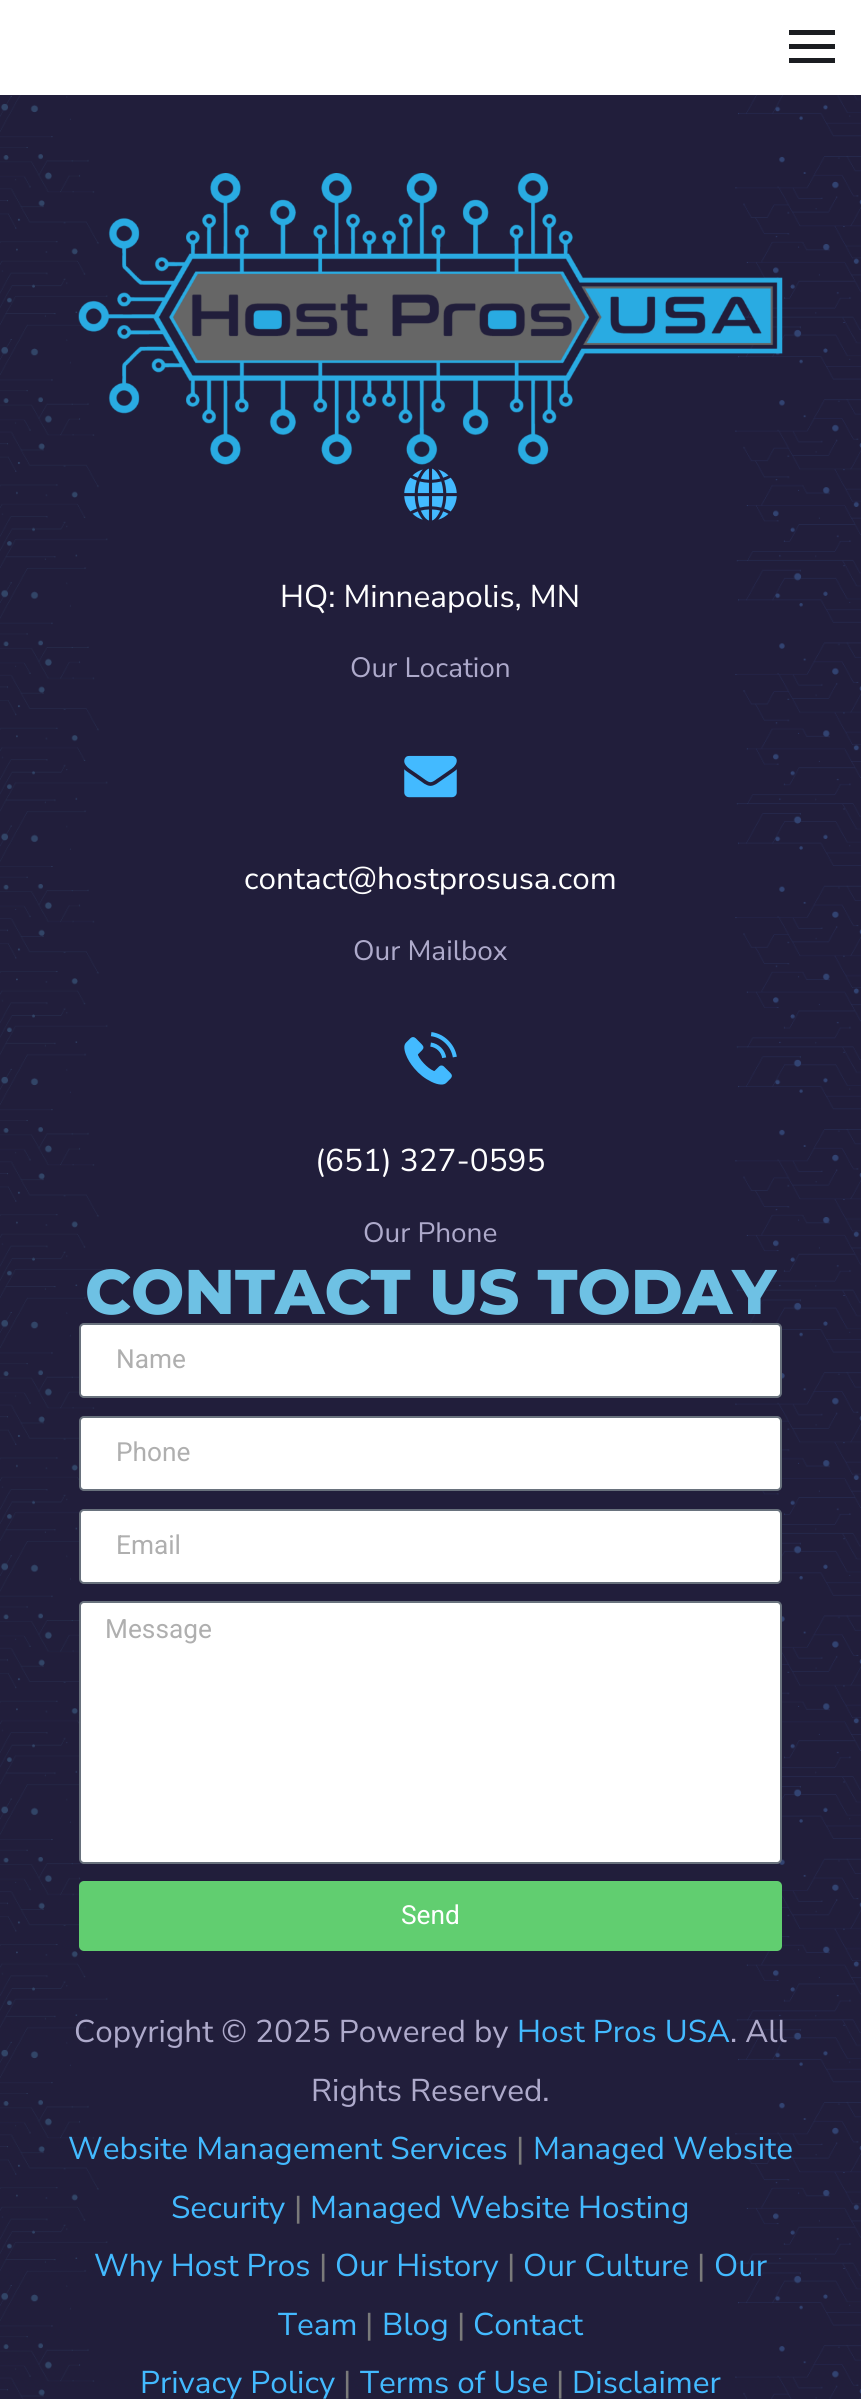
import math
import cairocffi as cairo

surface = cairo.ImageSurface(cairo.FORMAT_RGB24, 861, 2399)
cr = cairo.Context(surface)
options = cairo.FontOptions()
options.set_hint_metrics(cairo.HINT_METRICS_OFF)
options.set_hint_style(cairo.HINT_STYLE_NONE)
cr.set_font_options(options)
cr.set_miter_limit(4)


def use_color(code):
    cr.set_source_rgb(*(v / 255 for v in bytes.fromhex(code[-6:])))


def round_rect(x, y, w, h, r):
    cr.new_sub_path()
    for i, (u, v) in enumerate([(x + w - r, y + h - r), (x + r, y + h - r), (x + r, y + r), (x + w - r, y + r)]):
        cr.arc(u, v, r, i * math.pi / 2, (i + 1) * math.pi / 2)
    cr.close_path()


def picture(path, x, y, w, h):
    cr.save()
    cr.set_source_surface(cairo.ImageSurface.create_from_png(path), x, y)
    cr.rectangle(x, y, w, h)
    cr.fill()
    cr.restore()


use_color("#211e3b")
cr.paint()
use_color("#ffffff")
cr.rectangle(0, 0, 861, 95)
cr.fill()
use_color("#1b1d21")
cr.rectangle(789, 44, 46, 5)
cr.fill()
cr.rectangle(789, 30, 46, 5)
cr.fill()
cr.rectangle(789, 58, 46, 5)
cr.fill()
picture("img1.png", 0, 95, 861, 2304)
picture("img2.png", 78, 173, 705, 292)
picture("img3.png", 404, 468, 53, 53)
cr.select_font_face("Nunito Sans ExtraLight")
cr.set_font_size(31.5)
use_color("#ffffff")
cr.move_to(280, 607)
cr.show_text("HQ: Minneapolis, MN")
cr.set_font_size(28)
use_color("#aeaacb")
cr.move_to(350, 677)
cr.show_text("Our Location")
picture("img4.png", 404, 755, 53, 43)
cr.set_font_size(31.5)
use_color("#ffffff")
cr.move_to(244, 889)
cr.show_text("contact@hostprosusa.com")
cr.set_font_size(28)
use_color("#aeaacb")
cr.move_to(353, 960)
cr.show_text("Our Mailbox")
picture("img5.png", 404, 1032, 53, 53)
cr.set_font_size(31.5)
use_color("#ffffff")
cr.move_to(315, 1171)
cr.show_text("(651) 327-0595")
cr.set_font_size(28)
use_color("#aeaacb")
cr.move_to(363, 1242)
cr.show_text("Our Phone")
cr.select_font_face("Montserrat ExtraBold")
cr.set_font_size(63)
use_color("#6ec1e4")
cr.move_to(85, 1314)
cr.show_text("CONTACT US TODAY")
use_color("#ffffff")
round_rect(80, 1324, 701, 73, 4)
cr.fill_preserve()
use_color("#69727d")
cr.stroke()
cr.select_font_face("Roboto")
cr.set_font_size(26.25)
use_color("#afafaf")
cr.move_to(116, 1368)
cr.show_text("Name")
use_color("#ffffff")
round_rect(80, 1417, 701, 73, 4)
cr.fill_preserve()
use_color("#69727d")
cr.stroke()
use_color("#afafaf")
cr.move_to(116, 1461)
cr.show_text("Phone")
use_color("#ffffff")
round_rect(80, 1510, 701, 73, 4)
cr.fill_preserve()
use_color("#69727d")
cr.stroke()
use_color("#afafaf")
cr.move_to(116, 1554)
cr.show_text("Email")
use_color("#ffffff")
round_rect(80, 1602, 701, 261, 4)
cr.fill_preserve()
use_color("#69727d")
cr.stroke()
use_color("#afafaf")
cr.move_to(105, 1638)
cr.show_text("Message")
use_color("#61ce70")
round_rect(79, 1881, 703, 70, 5)
cr.fill()
use_color("#ffffff")
cr.move_to(401, 1924)
cr.show_text("Send")
cr.select_font_face("Nunito Sans ExtraLight")
cr.set_font_size(31.5)
use_color("#aeaacb")
cr.move_to(74, 2042)
cr.show_text("Copyright © 2025 Powered by")
use_color("#43baff")
cr.move_to(517, 2042)
cr.show_text("Host Pros USA")
use_color("#aeaacb")
cr.move_to(730, 2042)
cr.show_text(". All")
cr.move_to(311, 2101)
cr.show_text("Rights Reserved.")
use_color("#43baff")
cr.move_to(68, 2159)
cr.show_text("Website Management Services")
use_color("#7a7a7a")
cr.move_to(516, 2159)
cr.show_text("|")
use_color("#43baff")
cr.move_to(533, 2159)
cr.show_text("Managed Website")
cr.move_to(171, 2218)
cr.show_text("Security")
use_color("#7a7a7a")
cr.move_to(294, 2218)
cr.show_text("|")
use_color("#43baff")
cr.move_to(310, 2218)
cr.show_text("Managed Website Hosting")
cr.move_to(94, 2276)
cr.show_text("Why Host Pros")
use_color("#7a7a7a")
cr.move_to(319, 2276)
cr.show_text("|")
use_color("#43baff")
cr.move_to(335, 2276)
cr.show_text("Our History")
use_color("#7a7a7a")
cr.move_to(507, 2276)
cr.show_text("|")
use_color("#43baff")
cr.move_to(523, 2276)
cr.show_text("Our Culture")
use_color("#7a7a7a")
cr.move_to(697, 2276)
cr.show_text("|")
use_color("#43baff")
cr.move_to(714, 2276)
cr.show_text("Our")
cr.move_to(278, 2335)
cr.show_text("Team")
use_color("#7a7a7a")
cr.move_to(365, 2335)
cr.show_text("|")
use_color("#43baff")
cr.move_to(382, 2335)
cr.show_text("Blog")
use_color("#7a7a7a")
cr.move_to(457, 2335)
cr.show_text("|")
use_color("#43baff")
cr.move_to(473, 2335)
cr.show_text("Contact")
cr.move_to(140, 2393)
cr.show_text("Privacy Policy")
use_color("#7a7a7a")
cr.move_to(343, 2393)
cr.show_text("|")
use_color("#43baff")
cr.move_to(360, 2393)
cr.show_text("Terms of Use")
use_color("#7a7a7a")
cr.move_to(556, 2393)
cr.show_text("|")
use_color("#43baff")
cr.move_to(572, 2393)
cr.show_text("Disclaimer")
surface.write_to_png("result.png")
